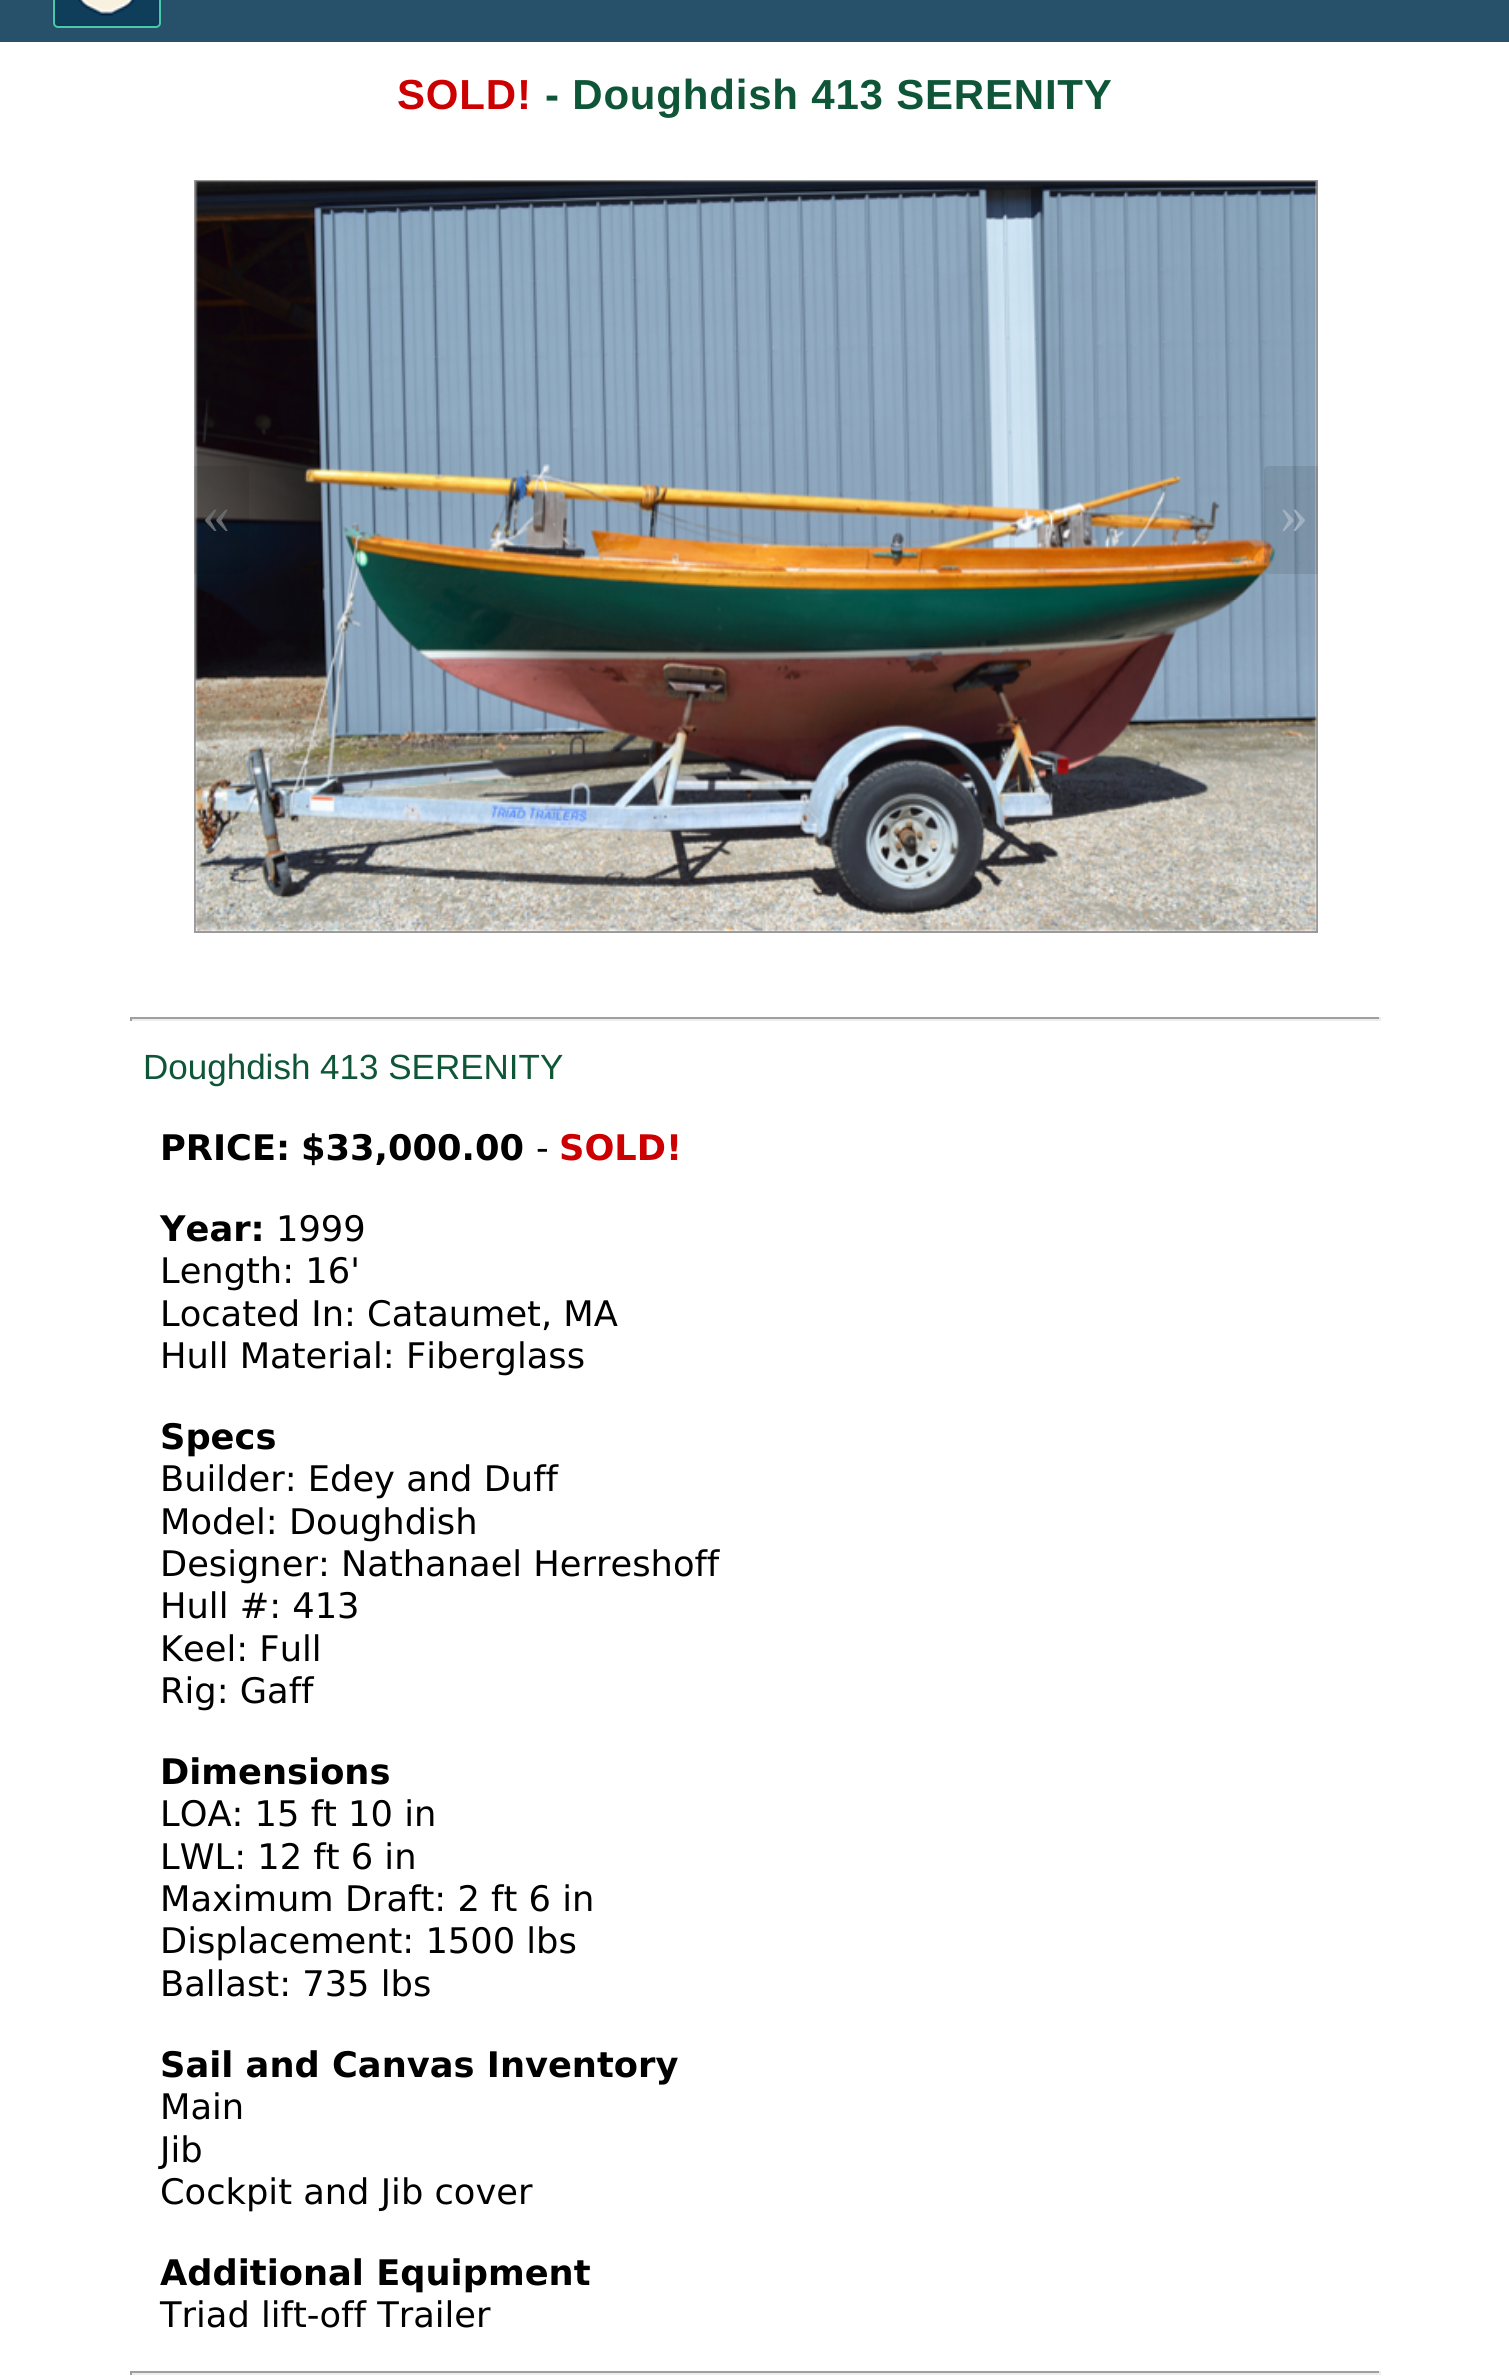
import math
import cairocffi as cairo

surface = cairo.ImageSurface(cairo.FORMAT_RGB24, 1509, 2377)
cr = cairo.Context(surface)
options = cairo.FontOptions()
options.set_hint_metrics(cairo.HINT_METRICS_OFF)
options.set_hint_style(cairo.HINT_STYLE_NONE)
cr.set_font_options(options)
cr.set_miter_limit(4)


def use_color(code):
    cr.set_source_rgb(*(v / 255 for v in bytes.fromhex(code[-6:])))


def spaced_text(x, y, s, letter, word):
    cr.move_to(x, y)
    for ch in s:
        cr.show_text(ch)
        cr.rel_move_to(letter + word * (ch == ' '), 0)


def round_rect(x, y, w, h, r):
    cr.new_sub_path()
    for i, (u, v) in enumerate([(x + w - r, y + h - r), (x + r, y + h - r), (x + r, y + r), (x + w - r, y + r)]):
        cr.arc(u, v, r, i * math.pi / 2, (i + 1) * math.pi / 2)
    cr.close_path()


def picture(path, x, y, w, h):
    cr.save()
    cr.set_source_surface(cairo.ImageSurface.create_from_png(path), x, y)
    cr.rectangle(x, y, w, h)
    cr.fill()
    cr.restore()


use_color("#ffffff")
cr.paint()
use_color("#27516b")
cr.rectangle(0, 0, 1509, 42)
cr.fill()
picture("img1.png", 52, 0, 109, 28)
round_rect(54, -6, 106, 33, 4)
use_color("#48c9a8")
cr.stroke()
cr.select_font_face("Liberation Sans", cairo.FONT_SLANT_NORMAL, cairo.FONT_WEIGHT_BOLD)
cr.set_font_size(42)
use_color("#cc0000")
spaced_text(397, 109, "SOLD!", 0.8, 0)
use_color("#0e5637")
spaced_text(545, 109, "- Doughdish 413 SERENITY", 0.8, 0)
cr.rectangle(195, 181, 1122, 751)
use_color("#999999")
cr.stroke()
picture("img2.png", 195, 181, 1123, 751)
cr.set_source_rgba(0, 0, 0, 0.09)
cr.new_path()
cr.move_to(194, 466)
cr.line_to(244, 466)
cr.curve_to(247, 466, 249, 468, 249, 471)
cr.line_to(249, 569)
cr.curve_to(249, 572, 247, 574, 244, 574)
cr.line_to(194, 574)
cr.close_path()
cr.fill()
cr.select_font_face("Liberation Serif")
cr.set_font_size(56)
use_color("#67696d")
cr.move_to(202, 533)
cr.show_text("«")
cr.set_source_rgba(0, 0, 0, 0.09)
cr.new_path()
cr.move_to(1269, 466)
cr.line_to(1318, 466)
cr.line_to(1318, 574)
cr.line_to(1269, 574)
cr.curve_to(1266, 574, 1264, 572, 1264, 569)
cr.line_to(1264, 471)
cr.curve_to(1264, 468, 1266, 466, 1269, 466)
cr.close_path()
cr.fill()
use_color("#a2b2c1")
cr.move_to(1280, 533)
cr.show_text("»")
use_color("#9f9f9f")
cr.rectangle(130, 1017, 1251, 2)
cr.fill()
use_color("#eeeeee")
cr.rectangle(1379, 1017, 2, 4)
cr.fill()
cr.rectangle(130, 1019, 1251, 2)
cr.fill()
use_color("#9f9f9f")
cr.rectangle(130, 1017, 2, 4)
cr.fill()
cr.select_font_face("Liberation Sans")
cr.set_font_size(35)
use_color("#0e5637")
cr.move_to(143, 1079)
cr.show_text("Doughdish 413 SERENITY")
cr.select_font_face("DejaVu Sans", cairo.FONT_SLANT_NORMAL, cairo.FONT_WEIGHT_BOLD)
cr.set_font_size(35.25)
use_color("#000000")
cr.move_to(160, 1160)
cr.show_text("PRICE:")
cr.move_to(301, 1160)
cr.show_text("$33,000.00")
cr.select_font_face("DejaVu Sans")
cr.move_to(536, 1160)
cr.show_text("-")
cr.select_font_face("DejaVu Sans", cairo.FONT_SLANT_NORMAL, cairo.FONT_WEIGHT_BOLD)
use_color("#cc0000")
cr.move_to(559, 1160)
cr.show_text("SOLD!")
use_color("#000000")
cr.move_to(160, 1241)
cr.show_text("Year:")
cr.select_font_face("DejaVu Sans")
cr.move_to(276, 1241)
cr.show_text("1999")
cr.move_to(160, 1283)
cr.show_text("Length: 16'")
cr.move_to(160, 1326)
cr.show_text("Located In: Cataumet, MA")
cr.move_to(160, 1368)
cr.show_text("Hull Material: Fiberglass")
cr.select_font_face("DejaVu Sans", cairo.FONT_SLANT_NORMAL, cairo.FONT_WEIGHT_BOLD)
cr.move_to(160, 1449)
cr.show_text("Specs")
cr.select_font_face("DejaVu Sans")
cr.move_to(160, 1491)
cr.show_text("Builder: Edey and Duff")
cr.move_to(160, 1534)
cr.show_text("Model: Doughdish")
cr.move_to(160, 1576)
cr.show_text("Designer: Nathanael Herreshoff")
cr.move_to(160, 1618)
cr.show_text("Hull #: 413")
cr.move_to(160, 1661)
cr.show_text("Keel: Full")
cr.move_to(160, 1703)
cr.show_text("Rig: Gaff")
cr.select_font_face("DejaVu Sans", cairo.FONT_SLANT_NORMAL, cairo.FONT_WEIGHT_BOLD)
cr.move_to(160, 1784)
cr.show_text("Dimensions")
cr.select_font_face("DejaVu Sans")
cr.move_to(160, 1826)
cr.show_text("LOA: 15 ft 10 in")
cr.move_to(160, 1869)
cr.show_text("LWL: 12 ft 6 in")
cr.move_to(160, 1911)
cr.show_text("Maximum Draft: 2 ft 6 in")
cr.move_to(160, 1953)
cr.show_text("Displacement: 1500 lbs")
cr.move_to(160, 1996)
cr.show_text("Ballast: 735 lbs")
cr.select_font_face("DejaVu Sans", cairo.FONT_SLANT_NORMAL, cairo.FONT_WEIGHT_BOLD)
cr.move_to(160, 2077)
cr.show_text("Sail and Canvas Inventory")
cr.select_font_face("DejaVu Sans")
cr.move_to(160, 2119)
cr.show_text("Main")
cr.move_to(160, 2162)
cr.show_text("Jib")
cr.move_to(160, 2204)
cr.show_text("Cockpit and Jib cover")
cr.select_font_face("DejaVu Sans", cairo.FONT_SLANT_NORMAL, cairo.FONT_WEIGHT_BOLD)
cr.move_to(160, 2285)
cr.show_text("Additional Equipment")
cr.select_font_face("DejaVu Sans")
cr.move_to(160, 2327)
cr.show_text("Triad lift-off Trailer")
use_color("#9f9f9f")
cr.rectangle(130, 2371, 1251, 2)
cr.fill()
use_color("#eeeeee")
cr.rectangle(1379, 2371, 2, 4)
cr.fill()
cr.rectangle(130, 2373, 1251, 2)
cr.fill()
use_color("#9f9f9f")
cr.rectangle(130, 2371, 2, 4)
cr.fill()
surface.write_to_png("result.png")
